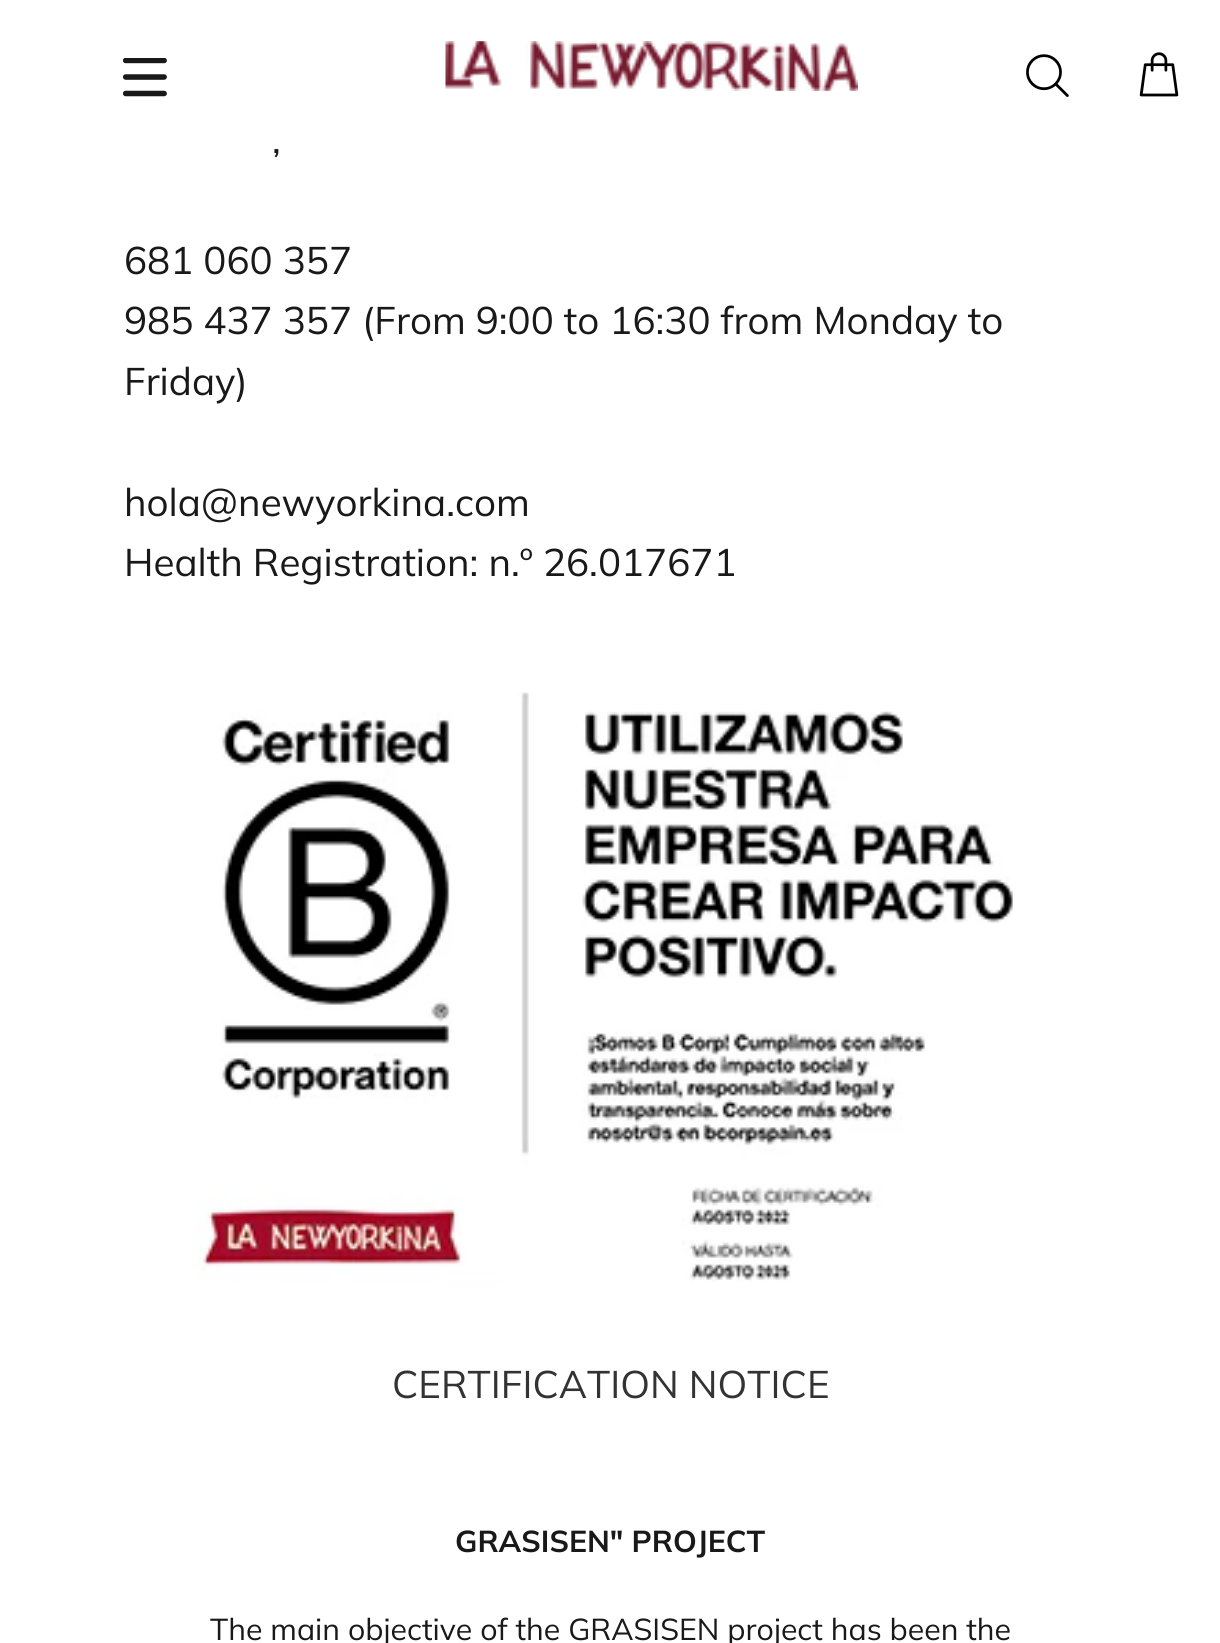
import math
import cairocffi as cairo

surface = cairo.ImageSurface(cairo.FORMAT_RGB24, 1220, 1643)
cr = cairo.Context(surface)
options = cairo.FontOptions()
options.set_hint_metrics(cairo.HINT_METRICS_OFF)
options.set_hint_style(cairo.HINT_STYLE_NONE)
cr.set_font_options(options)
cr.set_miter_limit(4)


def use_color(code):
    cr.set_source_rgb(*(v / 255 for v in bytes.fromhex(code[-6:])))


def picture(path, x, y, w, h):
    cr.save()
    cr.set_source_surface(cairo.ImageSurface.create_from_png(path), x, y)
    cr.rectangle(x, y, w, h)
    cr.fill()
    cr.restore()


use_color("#ffffff")
cr.paint()
picture("img1.png", 122, 58, 45, 39)
picture("img2.png", 445, 41, 413, 50)
picture("img3.png", 1026, 54, 43, 43)
picture("img4.png", 1139, 52, 40, 45)
cr.select_font_face("Muli")
cr.set_font_size(38.5)
use_color("#191919")
cr.move_to(272, 153)
cr.show_text(",")
cr.move_to(124, 274)
cr.show_text("681 060 357")
cr.move_to(124, 334)
cr.show_text("985 437 357 (From 9:00 to 16:30 from Monday to")
cr.move_to(124, 395)
cr.show_text("Friday)")
cr.move_to(124, 516)
cr.show_text("hola@newyorkina.com")
cr.move_to(124, 576)
cr.show_text("Health Registration: n.º 26.017671")
picture("img5.png", 198, 692, 815, 590)
use_color("#333333")
cr.move_to(392, 1398)
cr.show_text("CERTIFICATION NOTICE")
cr.select_font_face("Muli", cairo.FONT_SLANT_NORMAL, cairo.FONT_WEIGHT_BOLD)
cr.set_font_size(30.25)
use_color("#191919")
cr.move_to(455, 1552)
cr.show_text("GRASISEN\" PROJECT")
cr.select_font_face("Muli")
cr.move_to(210, 1640)
cr.show_text("The main objective of the GRASISEN project has been the")
surface.write_to_png("result.png")
